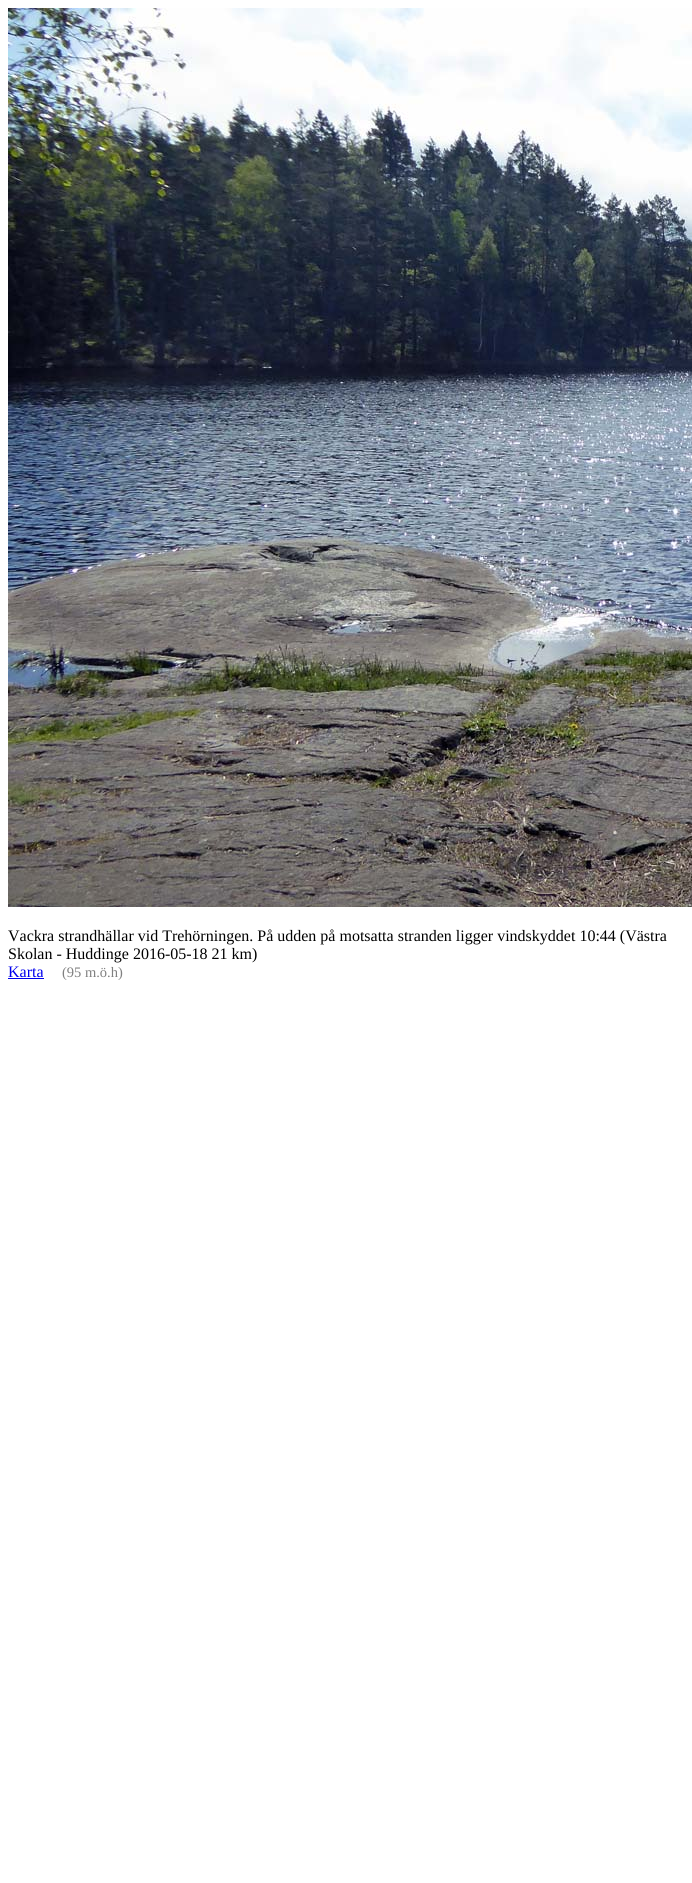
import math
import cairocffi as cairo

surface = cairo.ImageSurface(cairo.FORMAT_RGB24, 692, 1883)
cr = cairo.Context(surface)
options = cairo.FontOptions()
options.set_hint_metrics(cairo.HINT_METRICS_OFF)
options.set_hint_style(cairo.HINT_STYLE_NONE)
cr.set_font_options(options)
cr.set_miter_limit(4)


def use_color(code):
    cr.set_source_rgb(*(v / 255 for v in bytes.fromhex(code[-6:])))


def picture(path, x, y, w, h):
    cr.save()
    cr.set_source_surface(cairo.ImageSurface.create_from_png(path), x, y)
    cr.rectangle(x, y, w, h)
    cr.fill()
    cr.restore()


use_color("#ffffff")
cr.paint()
picture("img1.png", 8, 8, 684, 899)
cr.select_font_face("Liberation Serif")
cr.set_font_size(16)
use_color("#000000")
cr.move_to(8, 941)
cr.show_text("Vackra strandhällar vid Trehörningen. På udden på motsatta stranden ligger vindskyddet 10:44 (Västra")
cr.move_to(8, 959)
cr.show_text("Skolan - Huddinge 2016-05-18 21 km)")
use_color("#0000ee")
cr.move_to(8, 977)
cr.show_text("Karta")
cr.rectangle(8, 978, 36, 1)
cr.fill()
cr.set_font_size(14.5)
use_color("#808080")
cr.move_to(62, 977)
cr.show_text("(95 m.ö.h)")
surface.write_to_png("result.png")
